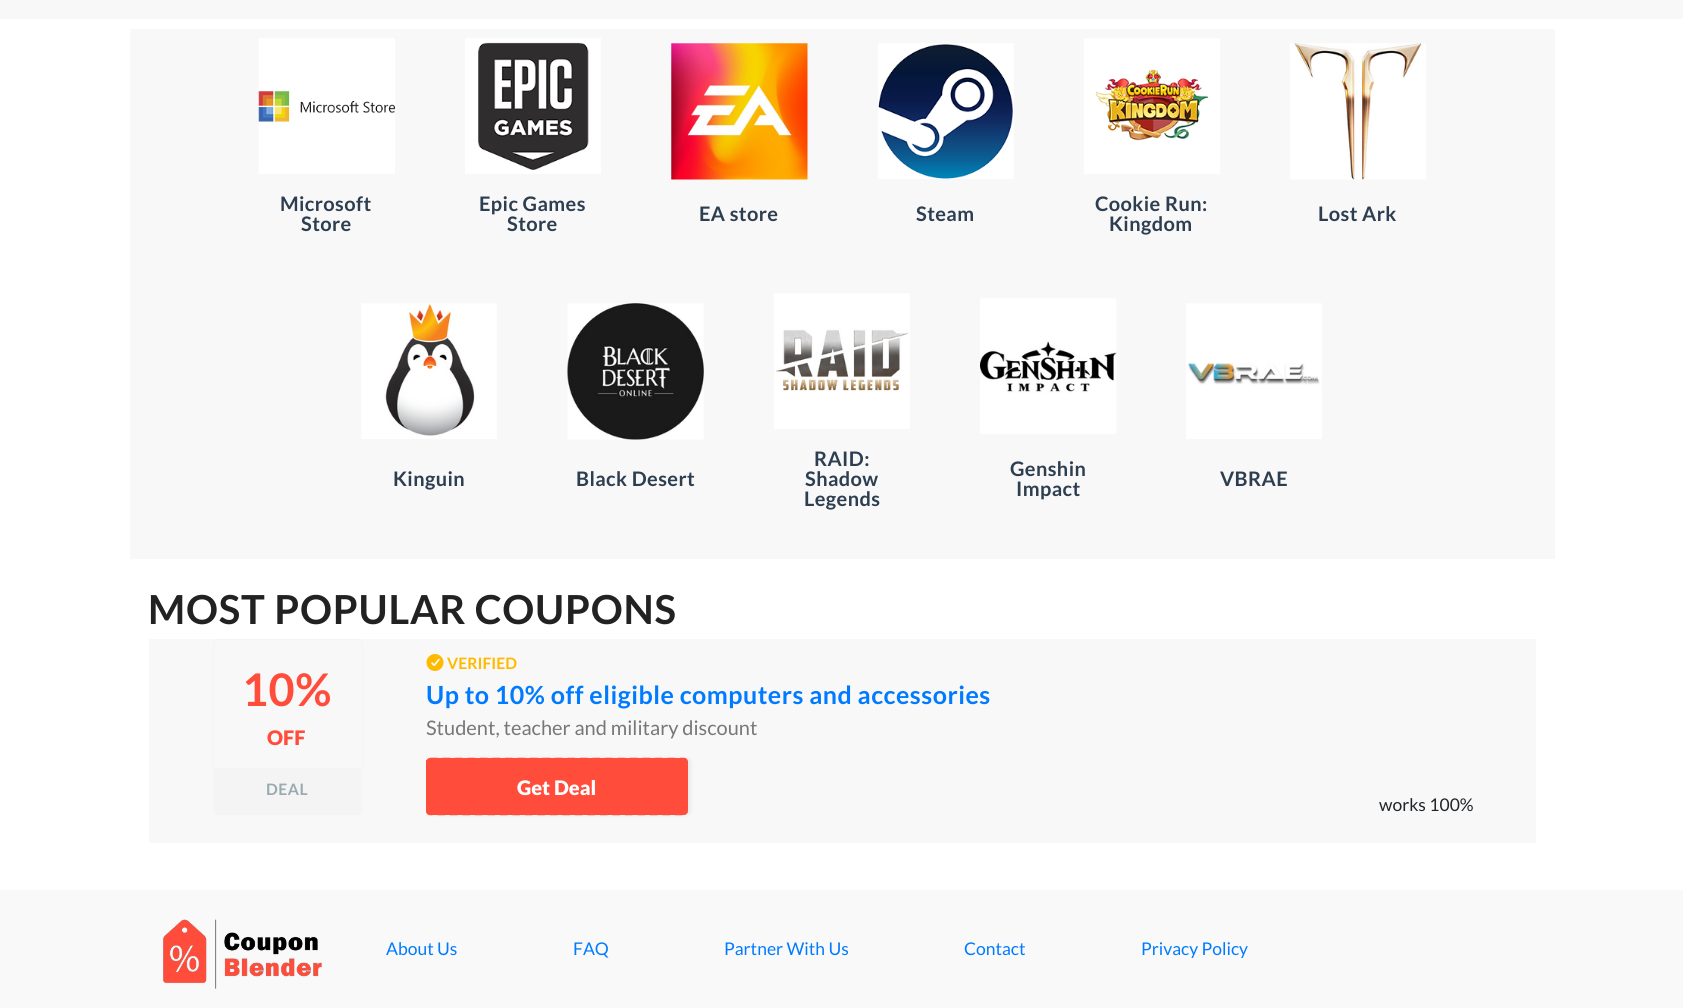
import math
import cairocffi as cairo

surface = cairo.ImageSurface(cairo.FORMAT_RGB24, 1683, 1008)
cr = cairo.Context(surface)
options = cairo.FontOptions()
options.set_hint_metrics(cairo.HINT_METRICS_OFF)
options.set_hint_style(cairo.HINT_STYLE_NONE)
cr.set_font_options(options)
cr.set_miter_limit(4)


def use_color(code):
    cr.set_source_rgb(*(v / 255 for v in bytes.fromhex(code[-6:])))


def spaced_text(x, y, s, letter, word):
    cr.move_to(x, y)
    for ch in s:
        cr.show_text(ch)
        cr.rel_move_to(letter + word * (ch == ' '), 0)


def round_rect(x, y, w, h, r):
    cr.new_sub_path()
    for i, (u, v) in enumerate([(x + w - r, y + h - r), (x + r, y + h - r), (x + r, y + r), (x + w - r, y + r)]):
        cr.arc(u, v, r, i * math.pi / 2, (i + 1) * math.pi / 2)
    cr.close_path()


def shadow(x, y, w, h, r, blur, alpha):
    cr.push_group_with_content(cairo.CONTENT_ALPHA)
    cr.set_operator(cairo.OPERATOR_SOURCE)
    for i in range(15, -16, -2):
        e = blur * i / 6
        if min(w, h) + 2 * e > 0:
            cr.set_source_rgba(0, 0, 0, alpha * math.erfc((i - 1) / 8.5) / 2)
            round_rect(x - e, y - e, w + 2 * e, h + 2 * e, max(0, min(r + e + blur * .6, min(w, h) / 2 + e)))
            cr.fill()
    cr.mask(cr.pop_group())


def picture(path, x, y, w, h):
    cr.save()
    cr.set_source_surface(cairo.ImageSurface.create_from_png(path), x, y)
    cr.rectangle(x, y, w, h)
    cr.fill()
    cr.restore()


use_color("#ffffff")
cr.paint()
use_color("#f8f8f8")
cr.rectangle(0, 0, 1683, 19)
cr.fill()
cr.rectangle(130, 29, 1425, 530)
cr.fill()
picture("img1.png", 258, 38, 137, 136)
cr.select_font_face("Lato", cairo.FONT_SLANT_NORMAL, cairo.FONT_WEIGHT_BOLD)
cr.set_font_size(20)
use_color("#2d3e50")
spaced_text(280, 211, "Microsoft", 0.4, 0)
spaced_text(301, 231, "Store", 0.4, 0)
picture("img2.png", 465, 38, 136, 136)
spaced_text(479, 211, "Epic Games", 0.4, 0)
spaced_text(507, 231, "Store", 0.4, 0)
picture("img3.png", 671, 43, 137, 137)
spaced_text(699, 221, "EA store", 0.4, 0)
picture("img4.png", 878, 43, 136, 136)
spaced_text(916, 221, "Steam", 0.4, 0)
picture("img5.png", 1084, 38, 136, 136)
spaced_text(1095, 211, "Cookie Run:", 0.4, 0)
spaced_text(1109, 231, "Kingdom", 0.4, 0)
picture("img6.png", 1290, 43, 136, 137)
spaced_text(1318, 221, "Lost Ark", 0.4, 0)
picture("img7.png", 361, 303, 136, 136)
spaced_text(393, 486, "Kinguin", 0.4, 0)
picture("img8.png", 567, 303, 137, 137)
spaced_text(576, 486, "Black Desert", 0.4, 0)
picture("img9.png", 774, 293, 136, 136)
spaced_text(814, 466, "RAID:", 0.4, 0)
spaced_text(805, 486, "Shadow", 0.4, 0)
spaced_text(804, 506, "Legends", 0.4, 0)
picture("img10.png", 980, 298, 137, 136)
spaced_text(1010, 476, "Genshin", 0.4, 0)
spaced_text(1016, 496, "Impact", 0.4, 0)
picture("img11.png", 1186, 303, 136, 136)
spaced_text(1220, 486, "VBRAE", 0.4, 0)
cr.set_font_size(40)
use_color("#222222")
spaced_text(148, 624, "MOST POPULAR COUPONS", 0.8, 0)
use_color("#f8f8f8")
cr.rectangle(149, 639, 1387, 204)
cr.fill()
round_rect(213.5, 639.5, 149, 175, 4.5)
use_color("#f5f4f4")
cr.set_line_width(1)
cr.stroke()
cr.set_font_size(45)
use_color("#ff4c3b")
spaced_text(242, 706, "10%", 0.5, 0)
cr.select_font_face("Lato Black")
cr.set_font_size(20)
cr.move_to(267, 745)
cr.show_text("OFF")
use_color("#f5f4f4")
cr.new_path()
cr.move_to(214, 768)
cr.line_to(361, 768)
cr.line_to(361, 811.5)
cr.curve_to(361, 813, 360, 814, 358.5, 814)
cr.line_to(216.5, 814)
cr.curve_to(215, 814, 214, 813, 214, 811.5)
cr.close_path()
cr.fill()
cr.select_font_face("Lato", cairo.FONT_SLANT_NORMAL, cairo.FONT_WEIGHT_BOLD)
cr.set_font_size(15.75)
use_color("#9aabb0")
spaced_text(266, 795, "DEAL", 0.5, 0)
picture("img12.png", 426, 654, 18, 17)
use_color("#ffba00")
cr.move_to(447, 669)
cr.show_text("VERIFIED")
cr.set_font_size(25)
use_color("#007bff")
spaced_text(426, 704, "Up to 10% off eligible computers and accessories", 0.5, 0)
cr.select_font_face("Lato")
cr.set_font_size(20)
use_color("#777777")
cr.move_to(426, 735)
cr.show_text("Student, teacher and military discount")
cr.new_path()
cr.move_to(430, 759)
cr.line_to(684, 759)
cr.curve_to(685, 759, 686, 760, 686, 761)
cr.line_to(686, 811)
cr.curve_to(686, 812.5, 685, 814, 684, 814)
cr.line_to(430, 814)
cr.curve_to(428.5, 814, 427.5, 812.5, 427.5, 811)
cr.line_to(427.5, 761)
cr.curve_to(427.5, 760, 428.5, 759, 430, 759)
cr.close_path()
use_color("#ff4c3b")
cr.set_line_width(2.5)
cr.set_dash([7.5, 5])
cr.stroke()
use_color("#000000")
shadow(430, 758, 261, 57, 4, 2, 0.06)
use_color("#ff4c3b")
round_rect(426, 758, 262, 57, 4)
cr.fill()
cr.select_font_face("Lato Black")
use_color("#ffffff")
cr.move_to(517, 795)
cr.show_text("Get Deal")
cr.select_font_face("Lato")
cr.set_font_size(17.5)
use_color("#212529")
cr.move_to(1379, 811)
cr.show_text("works 100%")
use_color("#f9f9f9")
cr.rectangle(0, 890, 1683, 118)
cr.fill()
picture("img13.png", 163, 919, 159, 70)
use_color("#007bff")
cr.move_to(386, 955)
cr.show_text("About Us")
cr.move_to(573, 955)
cr.show_text("FAQ")
cr.move_to(724, 955)
cr.show_text("Partner With Us")
cr.move_to(964, 955)
cr.show_text("Contact")
cr.move_to(1141, 955)
cr.show_text("Privacy Policy")
surface.write_to_png("result.png")
